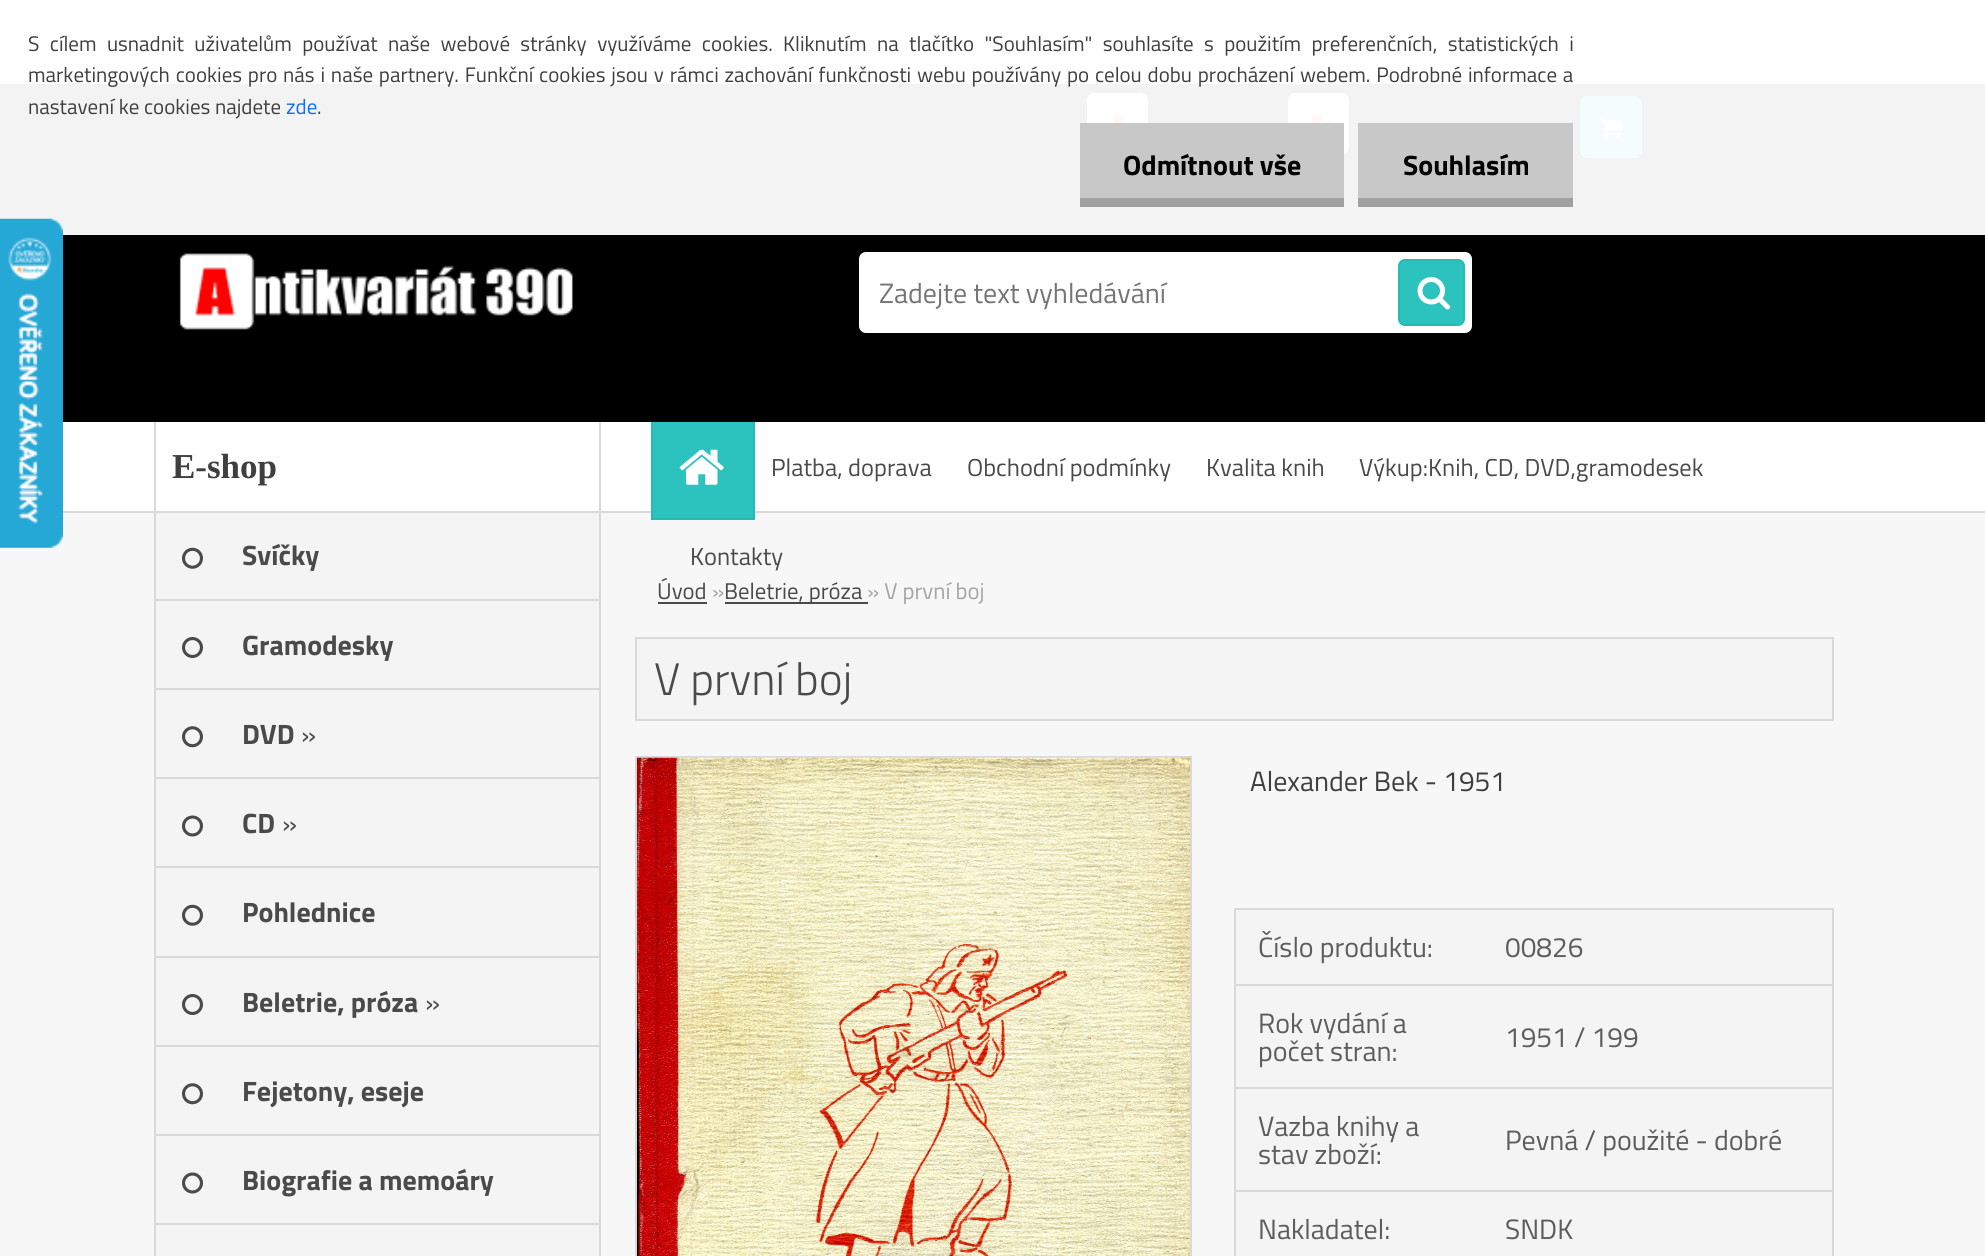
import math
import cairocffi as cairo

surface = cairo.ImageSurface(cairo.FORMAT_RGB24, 1985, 1256)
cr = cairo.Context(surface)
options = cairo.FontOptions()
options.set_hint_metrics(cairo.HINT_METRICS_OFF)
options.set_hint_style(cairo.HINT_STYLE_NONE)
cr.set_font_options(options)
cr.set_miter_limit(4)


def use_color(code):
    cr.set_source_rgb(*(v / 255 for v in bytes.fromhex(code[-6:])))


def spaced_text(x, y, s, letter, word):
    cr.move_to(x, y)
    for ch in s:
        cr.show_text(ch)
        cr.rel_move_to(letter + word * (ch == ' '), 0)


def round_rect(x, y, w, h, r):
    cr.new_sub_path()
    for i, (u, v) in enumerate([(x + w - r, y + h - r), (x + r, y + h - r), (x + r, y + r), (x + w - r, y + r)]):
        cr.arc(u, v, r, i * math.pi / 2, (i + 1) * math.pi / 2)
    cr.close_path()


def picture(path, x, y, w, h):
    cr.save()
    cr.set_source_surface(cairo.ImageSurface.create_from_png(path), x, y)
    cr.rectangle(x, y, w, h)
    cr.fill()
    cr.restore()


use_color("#f7f7f7")
cr.paint()
cr.rectangle(-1, 83, 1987, 429)
use_color("#d9d9d9")
cr.stroke()
use_color("#000000")
cr.rectangle(0, 84, 1985, 338)
cr.fill()
use_color("#f7f7f7")
round_rect(1087, 93, 61, 61, 7)
cr.fill()
picture("img4.png", 1113, 113, 11, 10)
round_rect(1288, 93, 61, 61, 7)
cr.fill()
picture("img5.png", 1311, 113, 19, 10)
use_color("#2cc3be")
round_rect(1581, 97, 60, 60, 6)
cr.fill_preserve()
cr.stroke()
picture("img6.png", 1599, 119, 24, 20)
cr.set_source_rgba(1, 1, 1, 0.95)
cr.rectangle(0, 0, 1985, 235)
cr.fill()
cr.select_font_face("Titillium Web")
cr.set_font_size(21)
use_color("#3f3f3f")
spaced_text(28, 51, "S cílem usnadnit uživatelům používat naše webové stránky využíváme cookies. Kliknutím na tlačítko \"Souhlasím\" souhlasíte s použitím preferenčních, statistických i", 0, 5.75)
spaced_text(28, 82, "marketingových cookies pro nás i naše partnery. Funkční cookies jsou v rámci zachování funkčnosti webu používány po celou dobu procházení webem. Podrobné informace a", 0, 1.2)
cr.move_to(28, 114)
cr.show_text("nastavení ke cookies najdete")
use_color("#0d6efd")
cr.move_to(286, 114)
cr.show_text("zde")
use_color("#3f3f3f")
cr.move_to(317, 114)
cr.show_text(".")
use_color("#c8c8c8")
cr.rectangle(1080, 123, 264, 75)
cr.fill()
use_color("#a0a0a0")
cr.rectangle(1080, 198, 264, 9)
cr.fill()
cr.select_font_face("Titillium Web", cairo.FONT_SLANT_NORMAL, cairo.FONT_WEIGHT_BOLD)
cr.set_font_size(28)
use_color("#000000")
cr.move_to(1123, 175)
cr.show_text("Odmítnout vše")
use_color("#c8c8c8")
cr.rectangle(1358, 123, 215, 75)
cr.fill()
use_color("#a0a0a0")
cr.rectangle(1358, 198, 215, 9)
cr.fill()
use_color("#000000")
cr.move_to(1403, 175)
cr.show_text("Souhlasím")
picture("img1.png", 0, 218, 63, 330)
use_color("#ffffff")
cr.rectangle(63, 422, 1922, 89)
cr.fill()
picture("img2.png", 179, 253, 394, 77)
round_rect(859, 252, 613, 81, 7)
cr.fill()
cr.select_font_face("Titillium Web")
use_color("#757575")
cr.move_to(879, 303)
cr.show_text("Zadejte text vyhledávání")
use_color("#2cc3be")
round_rect(1399, 260, 65, 65, 6)
cr.fill_preserve()
use_color("#25bcb7")
cr.stroke()
picture("img3.png", 1417, 277, 33, 33)
cr.select_font_face("Liberation Serif", cairo.FONT_SLANT_NORMAL, cairo.FONT_WEIGHT_BOLD)
cr.set_font_size(35)
use_color("#3f3f3f")
cr.move_to(172, 478)
cr.show_text("E-shop")
use_color("#f4f4f4")
cr.rectangle(156, 513, 443, 86)
cr.fill()
use_color("#d9d9d9")
cr.rectangle(599, 422, 2, 178)
cr.fill()
cr.rectangle(154, 599, 446, 2)
cr.fill()
cr.rectangle(154, 422, 2, 178)
cr.fill()
picture("img7.png", 182, 547, 21, 22)
cr.select_font_face("Titillium Web", cairo.FONT_SLANT_NORMAL, cairo.FONT_WEIGHT_BOLD)
cr.set_font_size(28)
use_color("#4a4a4a")
cr.move_to(242, 565)
cr.show_text("Svíčky")
use_color("#f4f4f4")
cr.rectangle(156, 601, 443, 87)
cr.fill()
use_color("#d9d9d9")
cr.rectangle(599, 600, 2, 357)
cr.fill()
cr.rectangle(154, 688, 446, 2)
cr.fill()
cr.rectangle(154, 600, 2, 90)
cr.fill()
picture("img8.png", 182, 637, 21, 21)
use_color("#4a4a4a")
cr.move_to(242, 655)
cr.show_text("Gramodesky")
use_color("#f4f4f4")
cr.rectangle(156, 690, 443, 87)
cr.fill()
use_color("#d9d9d9")
cr.rectangle(154, 777, 446, 2)
cr.fill()
cr.rectangle(154, 690, 2, 89)
cr.fill()
picture("img9.png", 182, 726, 21, 22)
use_color("#4a4a4a")
cr.move_to(242, 744)
cr.show_text("DVD")
cr.select_font_face("Titillium Web")
cr.move_to(301, 744)
cr.show_text("»")
use_color("#f4f4f4")
cr.rectangle(156, 779, 443, 87)
cr.fill()
use_color("#d9d9d9")
cr.rectangle(154, 866, 446, 2)
cr.fill()
cr.rectangle(154, 779, 2, 89)
cr.fill()
picture("img10.png", 182, 815, 21, 22)
cr.select_font_face("Titillium Web", cairo.FONT_SLANT_NORMAL, cairo.FONT_WEIGHT_BOLD)
use_color("#4a4a4a")
cr.move_to(242, 833)
cr.show_text("CD")
cr.select_font_face("Titillium Web")
cr.move_to(282, 833)
cr.show_text("»")
use_color("#f4f4f4")
cr.rectangle(156, 868, 443, 88)
cr.fill()
use_color("#d9d9d9")
cr.rectangle(154, 956, 446, 2)
cr.fill()
cr.rectangle(154, 868, 2, 89)
cr.fill()
picture("img7.png", 182, 904, 21, 22)
cr.select_font_face("Titillium Web", cairo.FONT_SLANT_NORMAL, cairo.FONT_WEIGHT_BOLD)
use_color("#4a4a4a")
cr.move_to(242, 922)
cr.show_text("Pohlednice")
use_color("#f4f4f4")
cr.rectangle(156, 958, 443, 87)
cr.fill()
use_color("#d9d9d9")
cr.rectangle(599, 957, 2, 299)
cr.fill()
cr.rectangle(154, 1045, 446, 2)
cr.fill()
cr.rectangle(154, 957, 2, 90)
cr.fill()
picture("img8.png", 182, 994, 21, 21)
use_color("#4a4a4a")
cr.move_to(242, 1012)
cr.show_text("Beletrie, próza")
cr.select_font_face("Titillium Web")
cr.move_to(425, 1012)
cr.show_text("»")
use_color("#f4f4f4")
cr.rectangle(156, 1047, 443, 87)
cr.fill()
use_color("#d9d9d9")
cr.rectangle(154, 1134, 446, 2)
cr.fill()
cr.rectangle(154, 1047, 2, 89)
cr.fill()
picture("img9.png", 182, 1083, 21, 22)
cr.select_font_face("Titillium Web", cairo.FONT_SLANT_NORMAL, cairo.FONT_WEIGHT_BOLD)
use_color("#4a4a4a")
cr.move_to(242, 1101)
cr.show_text("Fejetony, eseje")
use_color("#f4f4f4")
cr.rectangle(156, 1136, 443, 87)
cr.fill()
use_color("#d9d9d9")
cr.rectangle(154, 1223, 446, 2)
cr.fill()
cr.rectangle(154, 1136, 2, 120)
cr.fill()
picture("img10.png", 182, 1172, 21, 22)
use_color("#4a4a4a")
cr.move_to(242, 1190)
cr.show_text("Biografie a memoáry")
use_color("#f4f4f4")
cr.rectangle(156, 1225, 443, 31)
cr.fill()
cr.select_font_face("Titillium Web")
cr.set_font_size(22.75)
use_color("#4a4a4a")
cr.move_to(657, 599)
cr.show_text("Úvod")
cr.rectangle(658, 602, 49, 2)
cr.fill()
use_color("#a5a5a5")
cr.move_to(712, 599)
cr.show_text("»")
use_color("#4a4a4a")
cr.rectangle(725, 602, 143, 2)
cr.fill()
cr.move_to(724, 599)
cr.show_text("Beletrie, próza")
use_color("#a5a5a5")
cr.move_to(867, 599)
cr.show_text("» V první boj")
use_color("#f4f4f4")
cr.rectangle(636, 638, 1197, 82)
cr.fill_preserve()
use_color("#d9d9d9")
cr.stroke()
cr.select_font_face("Titillium Web Light")
cr.set_font_size(45.5)
use_color("#4a4a4a")
cr.move_to(654, 695)
cr.show_text("V první boj")
cr.rectangle(636, 757, 555, 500)
use_color("#d9d9d9")
cr.stroke()
picture("img11.png", 637, 757, 553, 499)
cr.select_font_face("Titillium Web")
cr.set_font_size(28)
use_color("#3f3f3f")
cr.move_to(1250, 791)
cr.show_text("Alexander Bek - 1951")
use_color("#d9d9d9")
cr.rectangle(1234, 908, 600, 2)
cr.fill()
cr.rectangle(1832, 908, 2, 348)
cr.fill()
cr.rectangle(1234, 908, 2, 348)
cr.fill()
use_color("#f4f4f4")
cr.rectangle(1236, 910, 596, 74)
cr.fill()
use_color("#5d5d5d")
cr.move_to(1258, 957)
cr.show_text("Číslo produktu:")
cr.move_to(1505, 957)
cr.show_text("00826")
use_color("#f4f4f4")
cr.rectangle(1236, 986, 596, 101)
cr.fill()
use_color("#d9d9d9")
cr.rectangle(1234, 984, 600, 2)
cr.fill()
use_color("#5d5d5d")
cr.move_to(1258, 1033)
cr.show_text("Rok vydání a")
cr.move_to(1258, 1061)
cr.show_text("počet stran:")
cr.move_to(1505, 1047)
cr.show_text("1951 / 199")
use_color("#f4f4f4")
cr.rectangle(1236, 1089, 596, 101)
cr.fill()
use_color("#d9d9d9")
cr.rectangle(1234, 1087, 600, 2)
cr.fill()
use_color("#5d5d5d")
cr.move_to(1258, 1136)
cr.show_text("Vazba knihy a")
cr.move_to(1258, 1164)
cr.show_text("stav zboží:")
cr.move_to(1505, 1150)
cr.show_text("Pevná / použité - dobré")
use_color("#f4f4f4")
cr.rectangle(1236, 1192, 596, 64)
cr.fill()
use_color("#d9d9d9")
cr.rectangle(1234, 1190, 600, 2)
cr.fill()
use_color("#5d5d5d")
cr.move_to(1258, 1239)
cr.show_text("Nakladatel:")
cr.move_to(1505, 1239)
cr.show_text("SNDK")
use_color("#2cc3be")
cr.rectangle(653, 422, 100, 96)
cr.fill()
use_color("#25bcb7")
cr.rectangle(753, 422, 2, 98)
cr.fill()
cr.rectangle(651, 518, 103, 2)
cr.fill()
cr.rectangle(651, 422, 2, 98)
cr.fill()
picture("img12.png", 679, 449, 45, 36)
cr.set_font_size(24.5)
use_color("#4a4a4a")
cr.move_to(771, 476)
cr.show_text("Platba, doprava")
cr.move_to(967, 476)
cr.show_text("Obchodní podmínky")
cr.move_to(1206, 476)
cr.show_text("Kvalita knih")
cr.move_to(1359, 476)
cr.show_text("Výkup:Knih, CD, DVD,gramodesek")
cr.move_to(690, 565)
cr.show_text("Kontakty")
surface.write_to_png("result.png")
